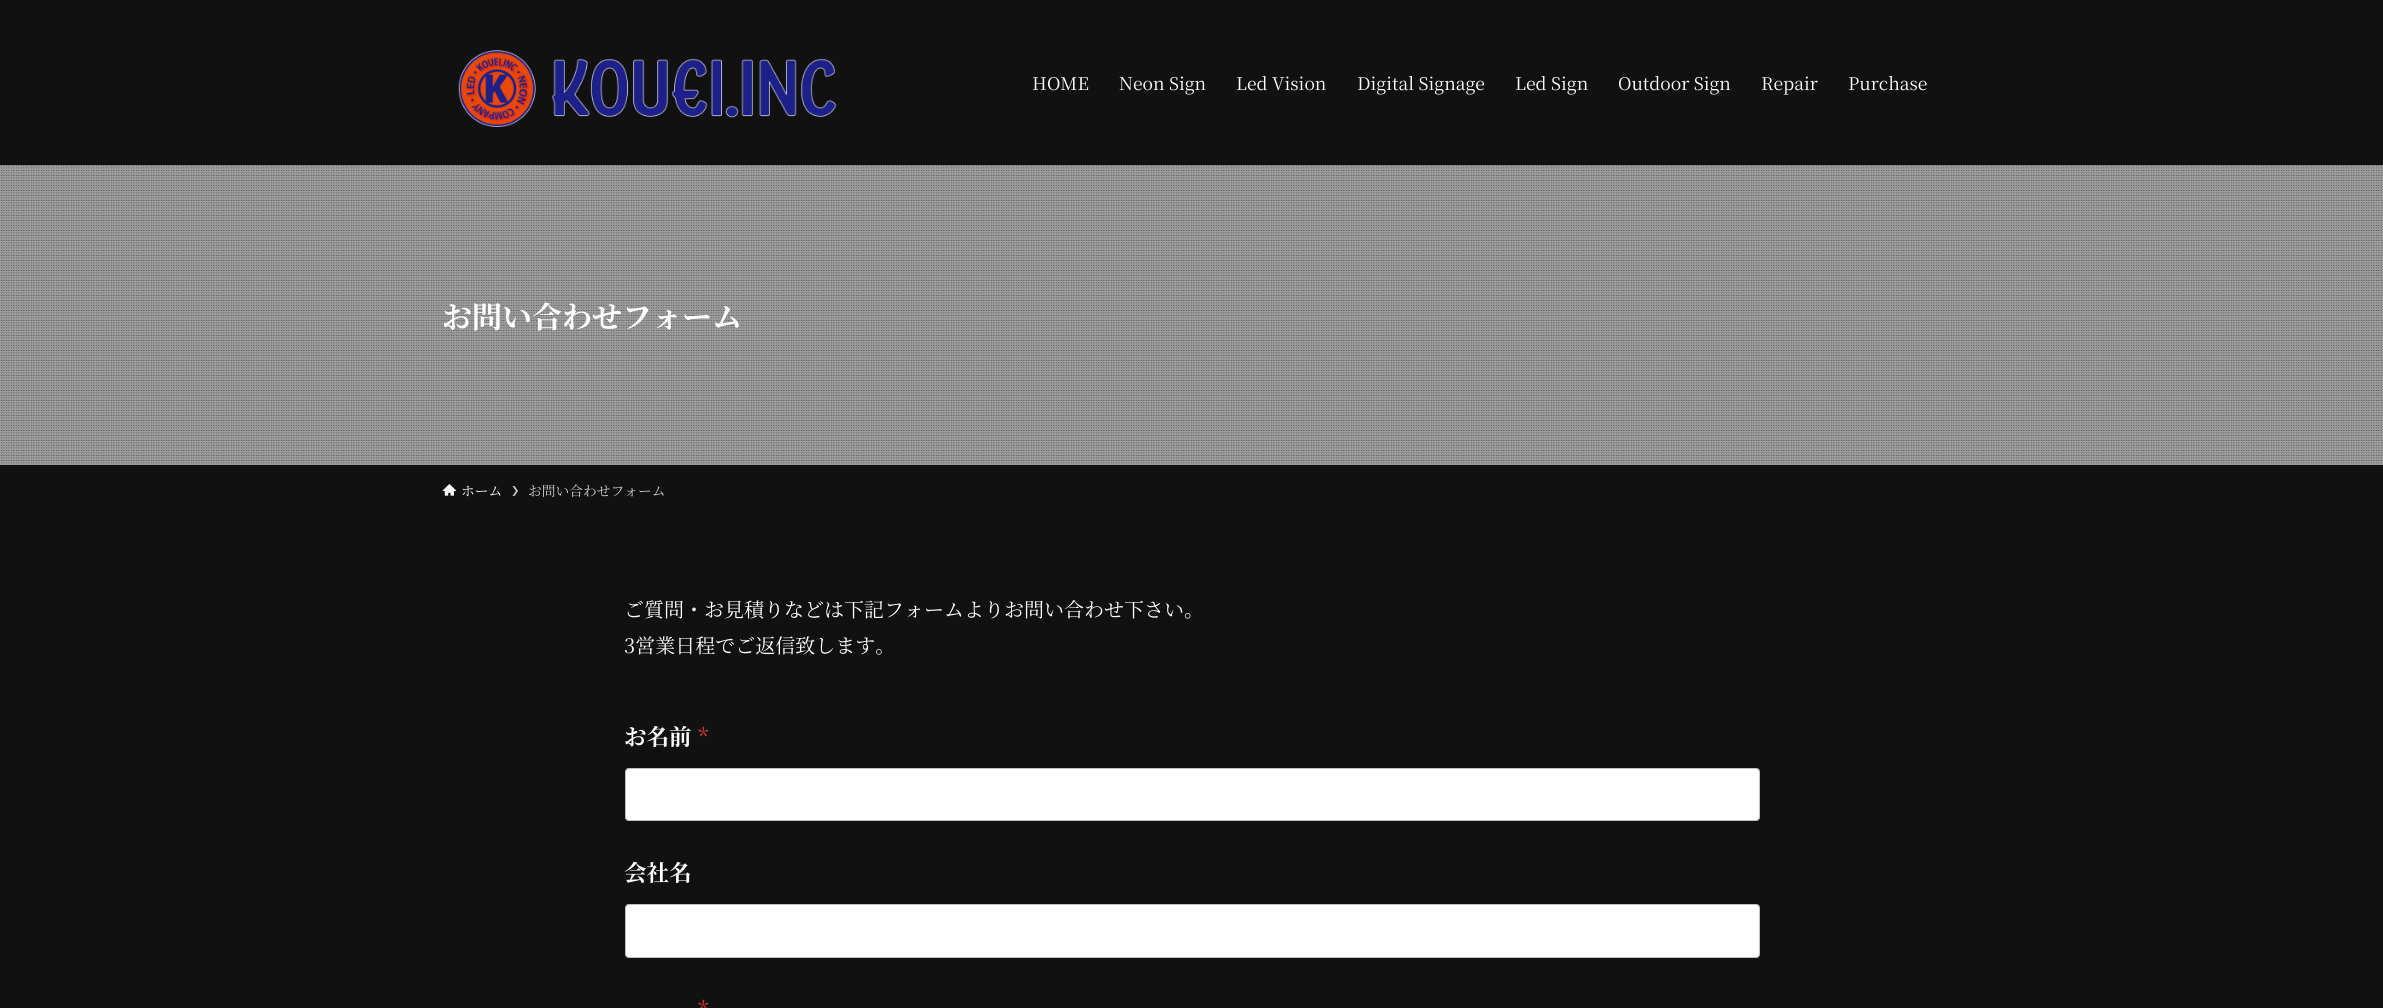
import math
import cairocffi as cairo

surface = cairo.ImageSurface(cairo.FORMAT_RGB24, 2383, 1008)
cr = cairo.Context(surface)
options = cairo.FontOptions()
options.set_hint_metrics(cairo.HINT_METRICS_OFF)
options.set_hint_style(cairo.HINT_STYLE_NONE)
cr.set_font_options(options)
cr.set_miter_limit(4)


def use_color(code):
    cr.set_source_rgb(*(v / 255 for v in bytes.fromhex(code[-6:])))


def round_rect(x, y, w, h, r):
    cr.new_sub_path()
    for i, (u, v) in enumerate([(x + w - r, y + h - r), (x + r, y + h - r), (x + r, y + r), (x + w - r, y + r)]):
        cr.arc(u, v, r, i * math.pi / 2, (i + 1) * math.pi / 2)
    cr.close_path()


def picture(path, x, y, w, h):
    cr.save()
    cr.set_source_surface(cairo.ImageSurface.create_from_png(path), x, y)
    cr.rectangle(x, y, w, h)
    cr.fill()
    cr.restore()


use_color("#111111")
cr.paint()
picture("img1.png", 458, 50, 379, 77)
cr.select_font_face("Noto Serif JP")
cr.set_font_size(17.5)
use_color("#ffffff")
cr.move_to(1032, 90)
cr.show_text("HOME")
cr.move_to(1119, 90)
cr.show_text("Neon Sign")
cr.move_to(1236, 90)
cr.show_text("Led Vision")
cr.move_to(1357, 90)
cr.show_text("Digital Signage")
cr.move_to(1515, 90)
cr.show_text("Led Sign")
cr.move_to(1618, 90)
cr.show_text("Outdoor Sign")
cr.move_to(1761, 90)
cr.show_text("Repair")
cr.move_to(1848, 90)
cr.show_text("Purchase")
use_color("#9f9f9f")
cr.rectangle(0, 165, 2383, 300)
cr.fill()
picture("img2.png", 0, 165, 2383, 300)
cr.select_font_face("Noto Serif JP", cairo.FONT_SLANT_NORMAL, cairo.FONT_WEIGHT_BOLD)
cr.set_font_size(30)
use_color("#ffffff")
cr.move_to(442, 328)
cr.show_text("お問い合わせフォーム")
picture("img3.png", 442, 484, 15, 12)
cr.select_font_face("Noto Serif JP")
cr.set_font_size(13.75)
cr.move_to(461, 496)
cr.show_text("ホーム")
use_color("#cecece")
cr.new_path()
cr.move_to(514.5, 486)
cr.line_to(512.5, 486)
cr.line_to(516, 491)
cr.line_to(512.5, 496)
cr.line_to(514.5, 496)
cr.line_to(518, 491)
cr.close_path()
cr.fill()
cr.move_to(528, 496)
cr.show_text("お問い合わせフォーム")
cr.set_font_size(20)
use_color("#ffffff")
cr.move_to(624, 617)
cr.show_text("ご質問・お見積りなどは下記フォームよりお問い合わせ下さい。")
cr.move_to(624, 653)
cr.show_text("3営業日程でご返信致します。")
cr.select_font_face("Noto Serif JP", cairo.FONT_SLANT_NORMAL, cairo.FONT_WEIGHT_BOLD)
cr.set_font_size(22.5)
cr.move_to(624, 745)
cr.show_text("お名前")
cr.select_font_face("Noto Serif JP")
use_color("#d63637")
cr.move_to(698, 745)
cr.show_text("*")
use_color("#ffffff")
round_rect(625, 768, 1135, 53, 4)
cr.fill()
round_rect(625.5, 768.5, 1134, 52, 3.5)
cr.set_source_rgba(0, 0, 0, 0.25)
cr.set_line_width(1)
cr.stroke()
cr.select_font_face("Noto Serif JP", cairo.FONT_SLANT_NORMAL, cairo.FONT_WEIGHT_BOLD)
use_color("#ffffff")
cr.move_to(624, 881)
cr.show_text("会社名")
round_rect(625, 904, 1135, 54, 4)
cr.fill()
round_rect(625.5, 904.5, 1134, 53, 3.5)
cr.set_source_rgba(0, 0, 0, 0.25)
cr.stroke()
cr.select_font_face("Noto Serif JP")
use_color("#d63637")
cr.move_to(698, 1018)
cr.show_text("*")
surface.write_to_png("result.png")
